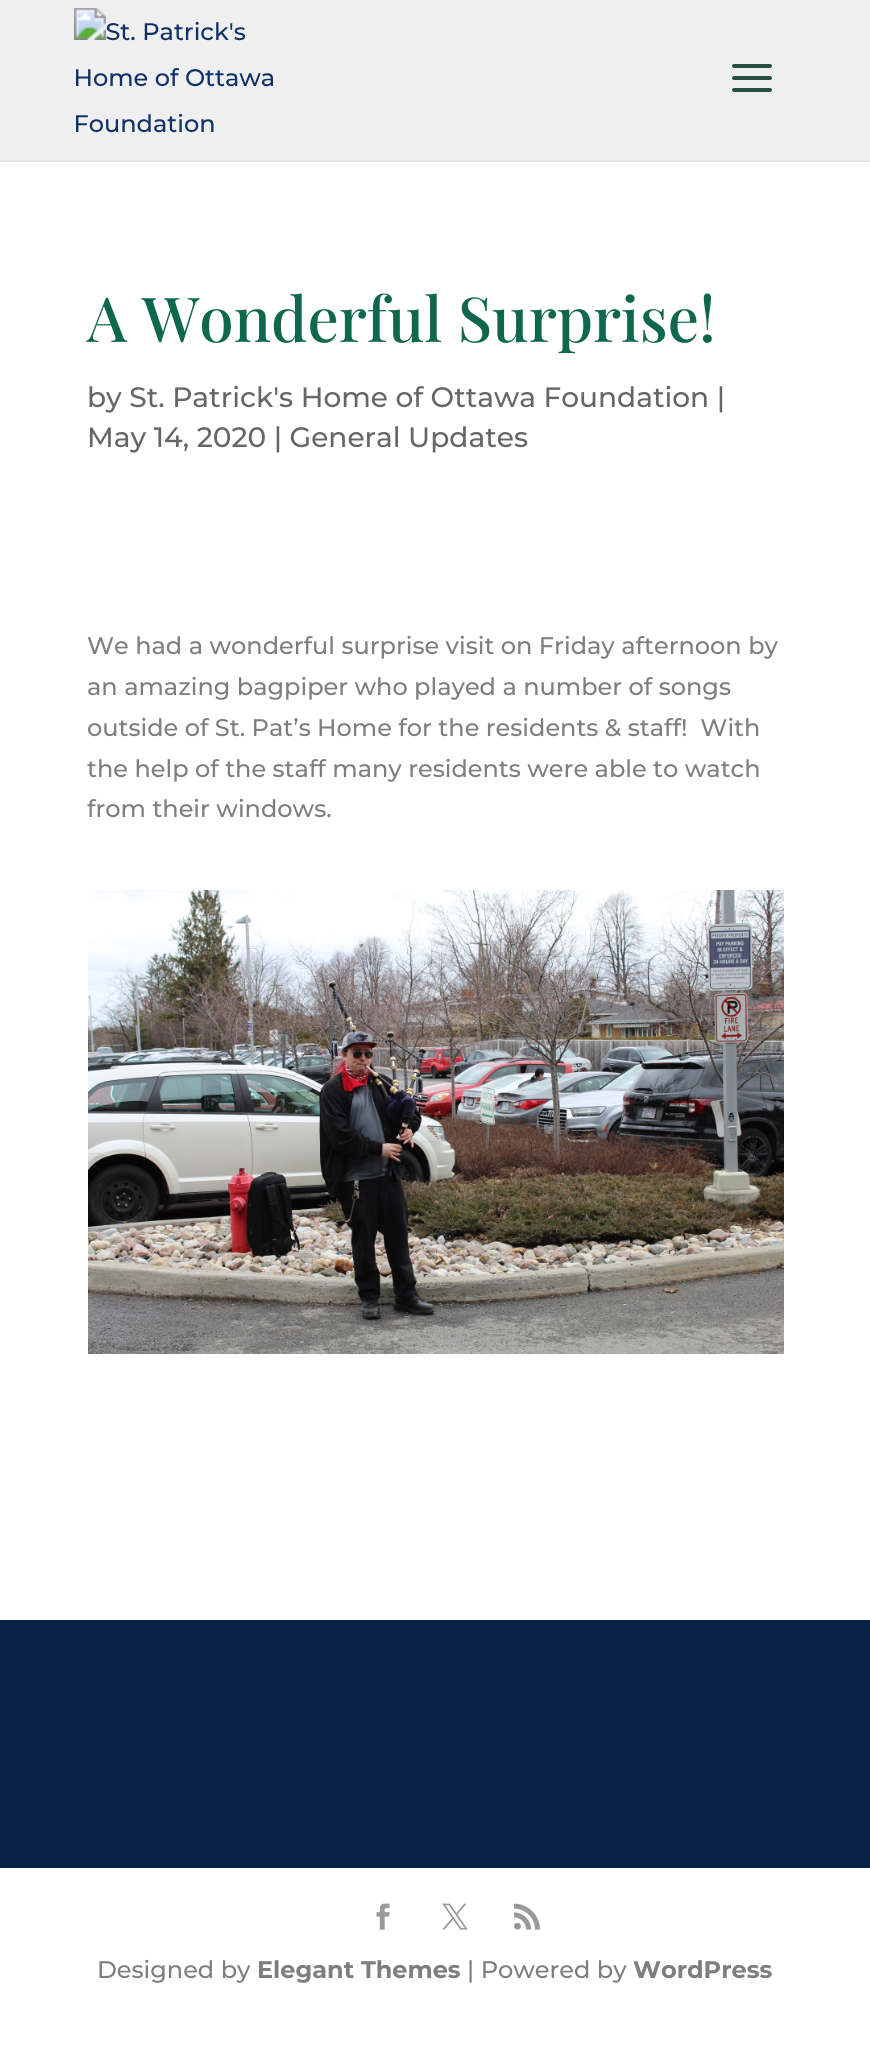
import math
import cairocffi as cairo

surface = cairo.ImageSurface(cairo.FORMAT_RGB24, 870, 2053)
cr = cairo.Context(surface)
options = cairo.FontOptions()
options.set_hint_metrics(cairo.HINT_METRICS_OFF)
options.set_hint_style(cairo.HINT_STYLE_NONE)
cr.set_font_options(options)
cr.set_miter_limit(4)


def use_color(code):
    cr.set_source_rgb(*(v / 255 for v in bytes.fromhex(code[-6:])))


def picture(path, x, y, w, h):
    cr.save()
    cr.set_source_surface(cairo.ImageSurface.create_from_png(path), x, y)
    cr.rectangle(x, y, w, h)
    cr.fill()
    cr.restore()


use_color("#ffffff")
cr.paint()
use_color("#e6e6e6")
cr.rectangle(0, 160, 870, 2)
cr.fill()
use_color("#efefef")
cr.rectangle(0, 0, 870, 160)
cr.fill()
picture("img1.png", 74, 8, 200, 125)
picture("img2.png", 732, 64, 40, 28)
cr.select_font_face("Playfair Display Medium")
cr.set_font_size(62)
use_color("#0f674e")
cr.move_to(87, 342)
cr.show_text("A Wonderful Surprise!")
cr.select_font_face("Montserrat Medium")
cr.set_font_size(28)
use_color("#666666")
cr.move_to(87, 407)
cr.show_text("by St. Patrick's Home of Ottawa Foundation |")
cr.move_to(87, 447)
cr.show_text("May 14, 2020 | General Updates")
cr.set_font_size(24)
use_color("#7e7e7e")
cr.move_to(87, 654)
cr.show_text("We had a wonderful surprise visit on Friday afternoon by")
cr.move_to(87, 695)
cr.show_text("an amazing bagpiper who played a number of songs")
cr.move_to(87, 736)
cr.show_text("outside of St. Pat’s Home for the residents & staff!  With")
cr.move_to(87, 777)
cr.show_text("the help of the staff many residents were able to watch")
cr.move_to(87, 817)
cr.show_text("from their windows.")
picture("img3.png", 88, 890, 696, 464)
use_color("#0c2349")
cr.rectangle(0, 1620, 870, 248)
cr.fill()
picture("img4.png", 376, 1903, 14, 27)
picture("img5.png", 442, 1903, 26, 27)
picture("img6.png", 514, 1903, 26, 27)
use_color("#7e7e7e")
cr.move_to(97, 1978)
cr.show_text("Designed by")
cr.select_font_face("Montserrat", cairo.FONT_SLANT_NORMAL, cairo.FONT_WEIGHT_BOLD)
cr.move_to(257, 1978)
cr.show_text("Elegant Themes")
cr.select_font_face("Montserrat Medium")
cr.move_to(467, 1978)
cr.show_text("| Powered by")
cr.select_font_face("Montserrat", cairo.FONT_SLANT_NORMAL, cairo.FONT_WEIGHT_BOLD)
cr.move_to(633, 1978)
cr.show_text("WordPress")
surface.write_to_png("result.png")
